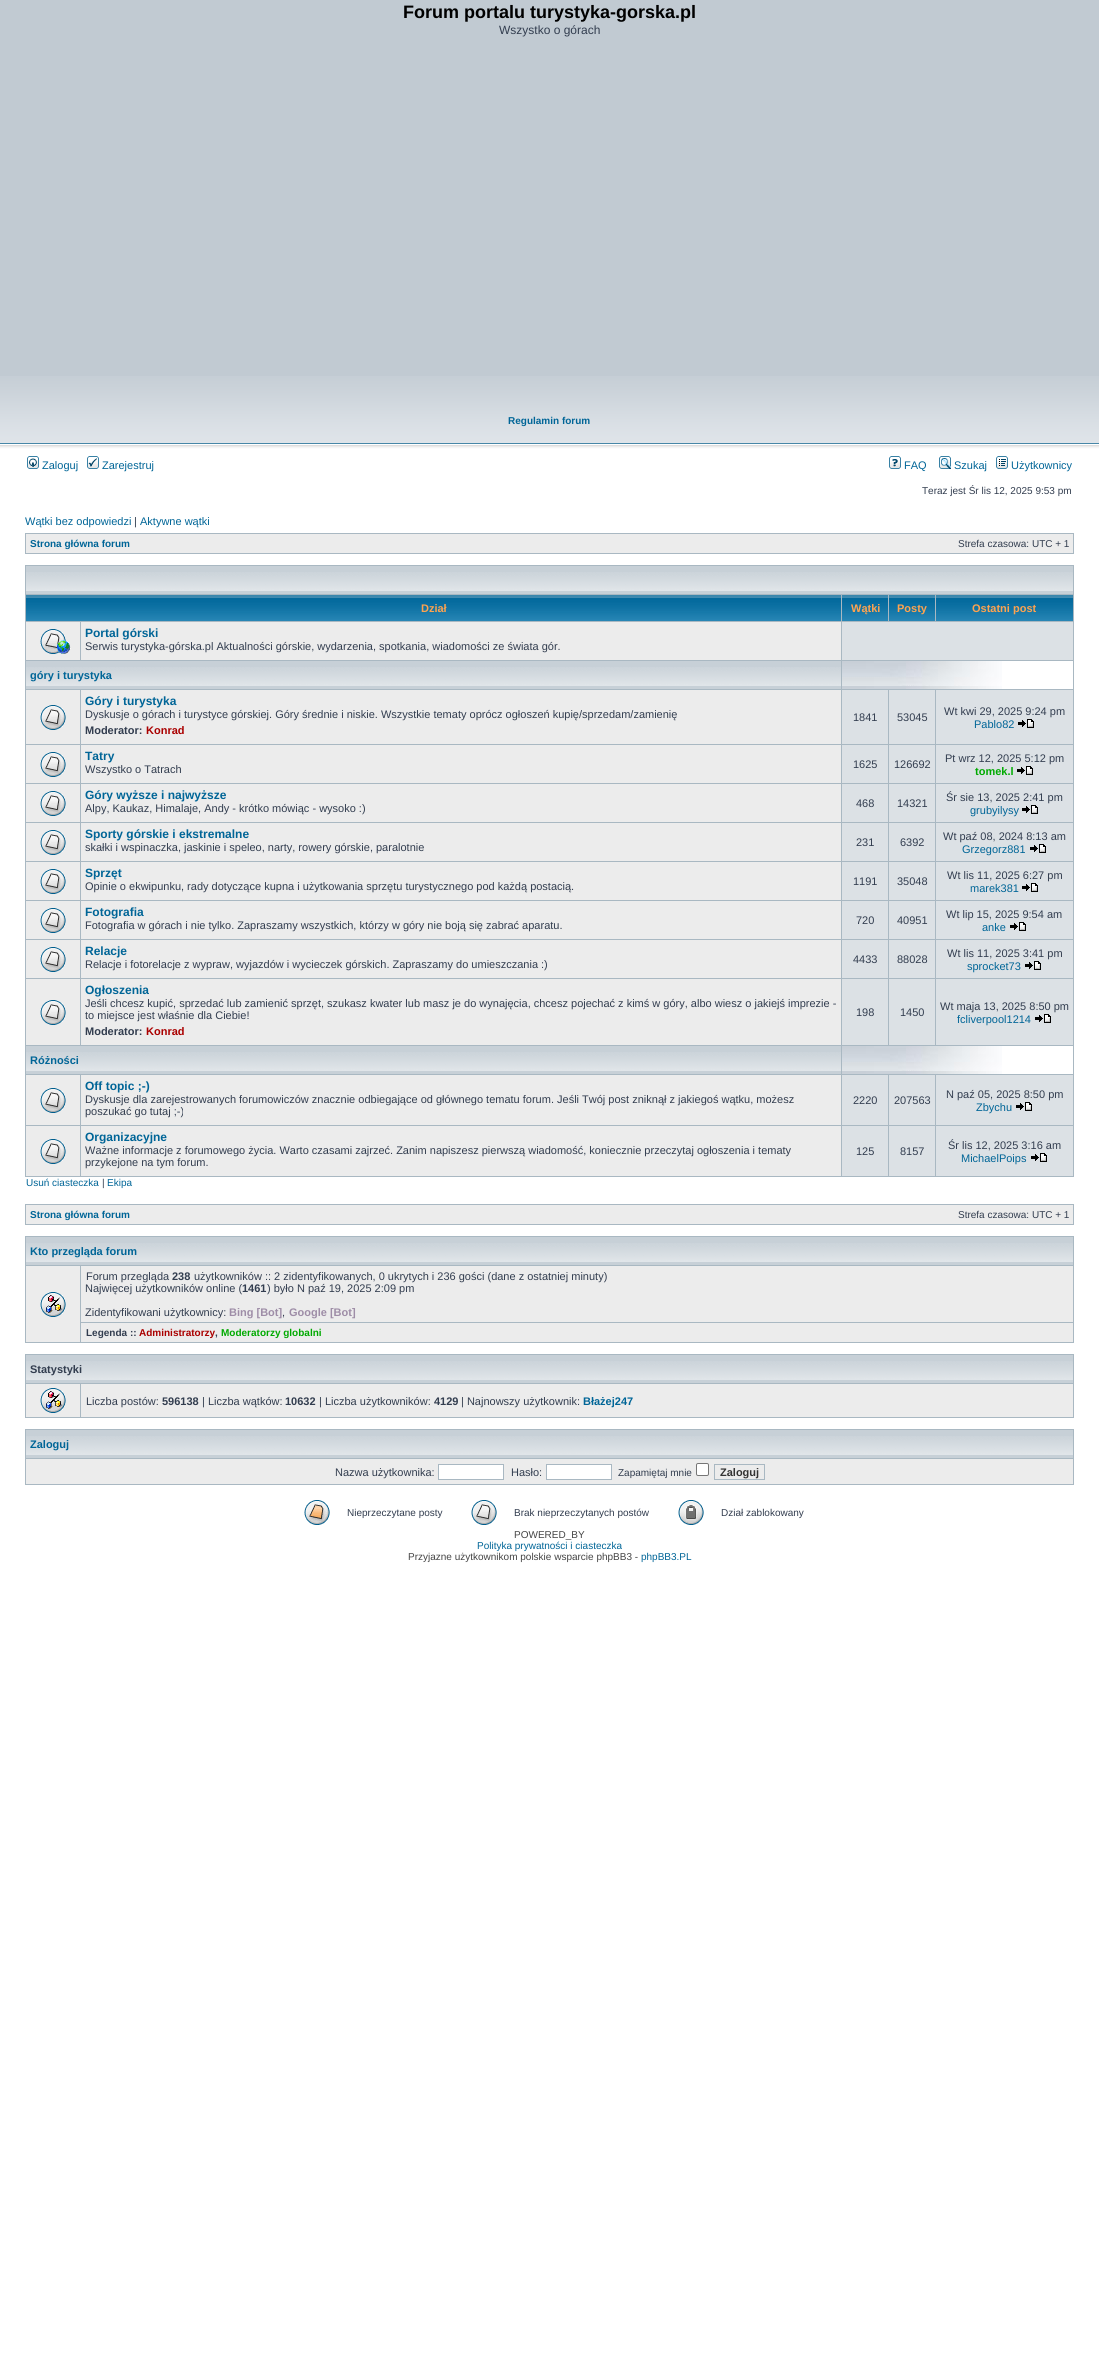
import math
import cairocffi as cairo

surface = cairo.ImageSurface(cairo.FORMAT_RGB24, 1099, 2354)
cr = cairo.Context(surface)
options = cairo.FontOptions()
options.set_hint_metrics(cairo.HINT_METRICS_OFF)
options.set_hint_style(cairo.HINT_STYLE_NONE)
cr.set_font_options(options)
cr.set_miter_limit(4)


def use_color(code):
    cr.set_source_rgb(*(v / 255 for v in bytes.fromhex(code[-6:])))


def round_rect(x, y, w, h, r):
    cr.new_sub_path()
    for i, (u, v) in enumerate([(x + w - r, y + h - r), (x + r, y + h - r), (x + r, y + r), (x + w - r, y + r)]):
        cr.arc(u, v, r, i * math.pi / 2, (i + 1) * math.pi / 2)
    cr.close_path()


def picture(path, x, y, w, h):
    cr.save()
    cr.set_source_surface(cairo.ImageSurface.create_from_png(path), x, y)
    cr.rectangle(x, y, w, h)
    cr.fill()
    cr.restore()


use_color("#ffffff")
cr.paint()
use_color("#c1cad2")
cr.rectangle(0, 0, 1099, 376)
cr.fill()
picture("img1.png", 0, 376, 1099, 78)
cr.select_font_face("Liberation Sans", cairo.FONT_SLANT_NORMAL, cairo.FONT_WEIGHT_BOLD)
cr.set_font_size(18)
use_color("#000000")
cr.move_to(403, 18)
cr.show_text("Forum portalu turystyka-gorska.pl")
cr.select_font_face("Liberation Sans")
cr.set_font_size(12)
use_color("#323d4f")
cr.move_to(499, 34)
cr.show_text("Wszystko o górach")
cr.select_font_face("Liberation Sans", cairo.FONT_SLANT_NORMAL, cairo.FONT_WEIGHT_BOLD)
cr.set_font_size(10)
use_color("#006597")
cr.move_to(508, 424)
cr.show_text("Regulamin forum")
picture("img2.png", 27, 456, 12, 13)
cr.select_font_face("Liberation Sans")
cr.set_font_size(11)
cr.move_to(42, 469)
cr.show_text("Zaloguj")
picture("img3.png", 87, 456, 12, 13)
cr.move_to(102, 469)
cr.show_text("Zarejestruj")
picture("img4.png", 889, 456, 12, 13)
cr.move_to(904, 469)
cr.show_text("FAQ")
picture("img5.png", 939, 456, 12, 13)
cr.move_to(954, 469)
cr.show_text("Szukaj")
picture("img6.png", 996, 456, 12, 13)
cr.move_to(1011, 469)
cr.show_text("Użytkownicy")
cr.set_font_size(10)
use_color("#323d4f")
cr.move_to(922, 494)
cr.show_text("Teraz jest Śr lis 12, 2025 9:53 pm")
cr.set_font_size(11)
use_color("#006597")
cr.move_to(25, 525)
cr.show_text("Wątki bez odpowiedzi")
use_color("#323d4f")
cr.move_to(134, 525)
cr.show_text("|")
use_color("#006597")
cr.move_to(140, 525)
cr.show_text("Aktywne wątki")
use_color("#a9b8c2")
cr.rectangle(25, 533, 1049, 21)
cr.fill()
use_color("#ececec")
cr.rectangle(26, 534, 1047, 19)
cr.fill()
cr.select_font_face("Liberation Sans", cairo.FONT_SLANT_NORMAL, cairo.FONT_WEIGHT_BOLD)
cr.set_font_size(10)
use_color("#006597")
cr.move_to(30, 547)
cr.show_text("Strona główna forum")
cr.select_font_face("Liberation Sans")
use_color("#323d4f")
cr.move_to(958, 547)
cr.show_text("Strefa czasowa: UTC + 1")
use_color("#a9b8c2")
cr.rectangle(25, 565, 1049, 612)
cr.fill()
use_color("#c7d0d7")
cr.rectangle(26, 566, 1047, 28)
cr.fill()
picture("img7.png", 26, 572, 1047, 19)
picture("img8.png", 26, 595, 815, 26)
cr.select_font_face("Liberation Sans", cairo.FONT_SLANT_NORMAL, cairo.FONT_WEIGHT_BOLD)
cr.set_font_size(11)
use_color("#ffa34f")
cr.move_to(421, 612)
cr.show_text("Dział")
picture("img9.png", 842, 595, 46, 26)
cr.move_to(851, 612)
cr.show_text("Wątki")
picture("img9.png", 889, 595, 46, 26)
cr.move_to(897, 612)
cr.show_text("Posty")
picture("img10.png", 936, 595, 137, 26)
cr.move_to(972, 612)
cr.show_text("Ostatni post")
use_color("#ececec")
cr.rectangle(26, 622, 54, 38)
cr.fill()
picture("img11.png", 40, 629, 31, 25)
cr.rectangle(81, 622, 760, 38)
cr.fill()
cr.set_font_size(12)
use_color("#006597")
cr.move_to(85, 637)
cr.show_text("Portal górski")
cr.select_font_face("Liberation Sans")
cr.set_font_size(11)
use_color("#323d4f")
cr.move_to(85, 650)
cr.show_text("Serwis turystyka-górska.pl Aktualności górskie, wydarzenia, spotkania, wiadomości ze świata gór.")
use_color("#dce1e5")
cr.rectangle(842, 622, 231, 38)
cr.fill()
use_color("#c7d0d7")
cr.rectangle(26, 661, 815, 28)
cr.fill()
picture("img12.png", 26, 667, 815, 19)
cr.select_font_face("Liberation Sans", cairo.FONT_SLANT_NORMAL, cairo.FONT_WEIGHT_BOLD)
use_color("#006597")
cr.move_to(30, 679)
cr.show_text("góry i turystyka")
use_color("#ffffff")
cr.rectangle(1002, 661, 71, 28)
cr.fill()
picture("img13.png", 842, 661, 160, 28)
use_color("#ececec")
cr.rectangle(26, 690, 54, 54)
cr.fill()
picture("img14.png", 40, 705, 26, 25)
cr.rectangle(81, 690, 760, 54)
cr.fill()
cr.set_font_size(12)
use_color("#006597")
cr.move_to(85, 705)
cr.show_text("Góry i turystyka")
cr.select_font_face("Liberation Sans")
cr.set_font_size(11)
use_color("#323d4f")
cr.move_to(85, 718)
cr.show_text("Dyskusje o górach i turystyce górskiej. Góry średnie i niskie. Wszystkie tematy oprócz ogłoszeń kupię/sprzedam/zamienię")
cr.select_font_face("Liberation Sans", cairo.FONT_SLANT_NORMAL, cairo.FONT_WEIGHT_BOLD)
cr.move_to(85, 734)
cr.show_text("Moderator:")
use_color("#aa0000")
cr.move_to(146, 734)
cr.show_text("Konrad")
use_color("#dce1e5")
cr.rectangle(842, 690, 46, 54)
cr.fill()
cr.select_font_face("Liberation Sans")
use_color("#323d4f")
cr.move_to(853, 721)
cr.show_text("1841")
use_color("#dce1e5")
cr.rectangle(889, 690, 46, 54)
cr.fill()
use_color("#323d4f")
cr.move_to(897, 721)
cr.show_text("53045")
use_color("#dce1e5")
cr.rectangle(936, 690, 137, 54)
cr.fill()
use_color("#323d4f")
cr.move_to(944, 715)
cr.show_text("Wt kwi 29, 2025 9:24 pm")
use_color("#006597")
cr.move_to(974, 728)
cr.show_text("Pablo82")
picture("img15.png", 1018, 719, 16, 9)
use_color("#ececec")
cr.rectangle(26, 745, 54, 38)
cr.fill()
picture("img14.png", 40, 752, 26, 25)
cr.rectangle(81, 745, 760, 38)
cr.fill()
cr.select_font_face("Liberation Sans", cairo.FONT_SLANT_NORMAL, cairo.FONT_WEIGHT_BOLD)
cr.set_font_size(12)
use_color("#006597")
cr.move_to(85, 760)
cr.show_text("Tatry")
cr.select_font_face("Liberation Sans")
cr.set_font_size(11)
use_color("#323d4f")
cr.move_to(85, 773)
cr.show_text("Wszystko o Tatrach")
use_color("#dce1e5")
cr.rectangle(842, 745, 46, 38)
cr.fill()
use_color("#323d4f")
cr.move_to(853, 768)
cr.show_text("1625")
use_color("#dce1e5")
cr.rectangle(889, 745, 46, 38)
cr.fill()
use_color("#323d4f")
cr.move_to(894, 768)
cr.show_text("126692")
use_color("#dce1e5")
cr.rectangle(936, 745, 137, 38)
cr.fill()
use_color("#323d4f")
cr.move_to(945, 762)
cr.show_text("Pt wrz 12, 2025 5:12 pm")
cr.select_font_face("Liberation Sans", cairo.FONT_SLANT_NORMAL, cairo.FONT_WEIGHT_BOLD)
use_color("#00aa00")
cr.move_to(975, 775)
cr.show_text("tomek.l")
picture("img15.png", 1017, 766, 16, 9)
use_color("#ececec")
cr.rectangle(26, 784, 54, 38)
cr.fill()
picture("img14.png", 40, 791, 26, 25)
cr.rectangle(81, 784, 760, 38)
cr.fill()
cr.set_font_size(12)
use_color("#006597")
cr.move_to(85, 799)
cr.show_text("Góry wyższe i najwyższe")
cr.select_font_face("Liberation Sans")
cr.set_font_size(11)
use_color("#323d4f")
cr.move_to(85, 812)
cr.show_text("Alpy, Kaukaz, Himalaje, Andy - krótko mówiąc - wysoko :)")
use_color("#dce1e5")
cr.rectangle(842, 784, 46, 38)
cr.fill()
use_color("#323d4f")
cr.move_to(856, 807)
cr.show_text("468")
use_color("#dce1e5")
cr.rectangle(889, 784, 46, 38)
cr.fill()
use_color("#323d4f")
cr.move_to(897, 807)
cr.show_text("14321")
use_color("#dce1e5")
cr.rectangle(936, 784, 137, 38)
cr.fill()
use_color("#323d4f")
cr.move_to(946, 801)
cr.show_text("Śr sie 13, 2025 2:41 pm")
use_color("#006597")
cr.move_to(970, 814)
cr.show_text("grubyilysy")
picture("img15.png", 1022, 805, 16, 9)
use_color("#ececec")
cr.rectangle(26, 823, 54, 38)
cr.fill()
picture("img14.png", 40, 830, 26, 25)
cr.rectangle(81, 823, 760, 38)
cr.fill()
cr.select_font_face("Liberation Sans", cairo.FONT_SLANT_NORMAL, cairo.FONT_WEIGHT_BOLD)
cr.set_font_size(12)
use_color("#006597")
cr.move_to(85, 838)
cr.show_text("Sporty górskie i ekstremalne")
cr.select_font_face("Liberation Sans")
cr.set_font_size(11)
use_color("#323d4f")
cr.move_to(85, 851)
cr.show_text("skałki i wspinaczka, jaskinie i speleo, narty, rowery górskie, paralotnie")
use_color("#dce1e5")
cr.rectangle(842, 823, 46, 38)
cr.fill()
use_color("#323d4f")
cr.move_to(856, 846)
cr.show_text("231")
use_color("#dce1e5")
cr.rectangle(889, 823, 46, 38)
cr.fill()
use_color("#323d4f")
cr.move_to(900, 846)
cr.show_text("6392")
use_color("#dce1e5")
cr.rectangle(936, 823, 137, 38)
cr.fill()
use_color("#323d4f")
cr.move_to(943, 840)
cr.show_text("Wt paź 08, 2024 8:13 am")
use_color("#006597")
cr.move_to(962, 853)
cr.show_text("Grzegorz881")
picture("img15.png", 1030, 844, 16, 9)
use_color("#ececec")
cr.rectangle(26, 862, 54, 38)
cr.fill()
picture("img14.png", 40, 869, 26, 25)
cr.rectangle(81, 862, 760, 38)
cr.fill()
cr.select_font_face("Liberation Sans", cairo.FONT_SLANT_NORMAL, cairo.FONT_WEIGHT_BOLD)
cr.set_font_size(12)
use_color("#006597")
cr.move_to(85, 877)
cr.show_text("Sprzęt")
cr.select_font_face("Liberation Sans")
cr.set_font_size(11)
use_color("#323d4f")
cr.move_to(85, 890)
cr.show_text("Opinie o ekwipunku, rady dotyczące kupna i użytkowania sprzętu turystycznego pod każdą postacią.")
use_color("#dce1e5")
cr.rectangle(842, 862, 46, 38)
cr.fill()
use_color("#323d4f")
cr.move_to(853, 885)
cr.show_text("1191")
use_color("#dce1e5")
cr.rectangle(889, 862, 46, 38)
cr.fill()
use_color("#323d4f")
cr.move_to(897, 885)
cr.show_text("35048")
use_color("#dce1e5")
cr.rectangle(936, 862, 137, 38)
cr.fill()
use_color("#323d4f")
cr.move_to(947, 879)
cr.show_text("Wt lis 11, 2025 6:27 pm")
use_color("#006597")
cr.move_to(970, 892)
cr.show_text("marek381")
picture("img15.png", 1022, 883, 16, 9)
use_color("#ececec")
cr.rectangle(26, 901, 54, 38)
cr.fill()
picture("img14.png", 40, 908, 26, 25)
cr.rectangle(81, 901, 760, 38)
cr.fill()
cr.select_font_face("Liberation Sans", cairo.FONT_SLANT_NORMAL, cairo.FONT_WEIGHT_BOLD)
cr.set_font_size(12)
use_color("#006597")
cr.move_to(85, 916)
cr.show_text("Fotografia")
cr.select_font_face("Liberation Sans")
cr.set_font_size(11)
use_color("#323d4f")
cr.move_to(85, 929)
cr.show_text("Fotografia w górach i nie tylko. Zapraszamy wszystkich, którzy w góry nie boją się zabrać aparatu.")
use_color("#dce1e5")
cr.rectangle(842, 901, 46, 38)
cr.fill()
use_color("#323d4f")
cr.move_to(856, 924)
cr.show_text("720")
use_color("#dce1e5")
cr.rectangle(889, 901, 46, 38)
cr.fill()
use_color("#323d4f")
cr.move_to(897, 924)
cr.show_text("40951")
use_color("#dce1e5")
cr.rectangle(936, 901, 137, 38)
cr.fill()
use_color("#323d4f")
cr.move_to(946, 918)
cr.show_text("Wt lip 15, 2025 9:54 am")
use_color("#006597")
cr.move_to(982, 931)
cr.show_text("anke")
picture("img15.png", 1010, 922, 16, 9)
use_color("#ececec")
cr.rectangle(26, 940, 54, 38)
cr.fill()
picture("img14.png", 40, 947, 26, 25)
cr.rectangle(81, 940, 760, 38)
cr.fill()
cr.select_font_face("Liberation Sans", cairo.FONT_SLANT_NORMAL, cairo.FONT_WEIGHT_BOLD)
cr.set_font_size(12)
use_color("#006597")
cr.move_to(85, 955)
cr.show_text("Relacje")
cr.select_font_face("Liberation Sans")
cr.set_font_size(11)
use_color("#323d4f")
cr.move_to(85, 968)
cr.show_text("Relacje i fotorelacje z wypraw, wyjazdów i wycieczek górskich. Zapraszamy do umieszczania :)")
use_color("#dce1e5")
cr.rectangle(842, 940, 46, 38)
cr.fill()
use_color("#323d4f")
cr.move_to(853, 963)
cr.show_text("4433")
use_color("#dce1e5")
cr.rectangle(889, 940, 46, 38)
cr.fill()
use_color("#323d4f")
cr.move_to(897, 963)
cr.show_text("88028")
use_color("#dce1e5")
cr.rectangle(936, 940, 137, 38)
cr.fill()
use_color("#323d4f")
cr.move_to(947, 957)
cr.show_text("Wt lis 11, 2025 3:41 pm")
use_color("#006597")
cr.move_to(967, 970)
cr.show_text("sprocket73")
picture("img15.png", 1025, 961, 16, 9)
use_color("#ececec")
cr.rectangle(26, 979, 54, 66)
cr.fill()
picture("img14.png", 40, 1000, 26, 25)
cr.rectangle(81, 979, 760, 66)
cr.fill()
cr.select_font_face("Liberation Sans", cairo.FONT_SLANT_NORMAL, cairo.FONT_WEIGHT_BOLD)
cr.set_font_size(12)
use_color("#006597")
cr.move_to(85, 994)
cr.show_text("Ogłoszenia")
cr.select_font_face("Liberation Sans")
cr.set_font_size(11)
use_color("#323d4f")
cr.move_to(85, 1007)
cr.show_text("Jeśli chcesz kupić, sprzedać lub zamienić sprzęt, szukasz kwater lub masz je do wynajęcia, chcesz pojechać z kimś w góry, albo wiesz o jakiejś imprezie -")
cr.move_to(85, 1019)
cr.show_text("to miejsce jest właśnie dla Ciebie!")
cr.select_font_face("Liberation Sans", cairo.FONT_SLANT_NORMAL, cairo.FONT_WEIGHT_BOLD)
cr.move_to(85, 1035)
cr.show_text("Moderator:")
use_color("#aa0000")
cr.move_to(146, 1035)
cr.show_text("Konrad")
use_color("#dce1e5")
cr.rectangle(842, 979, 46, 66)
cr.fill()
cr.select_font_face("Liberation Sans")
use_color("#323d4f")
cr.move_to(856, 1016)
cr.show_text("198")
use_color("#dce1e5")
cr.rectangle(889, 979, 46, 66)
cr.fill()
use_color("#323d4f")
cr.move_to(900, 1016)
cr.show_text("1450")
use_color("#dce1e5")
cr.rectangle(936, 979, 137, 66)
cr.fill()
use_color("#323d4f")
cr.move_to(940, 1010)
cr.show_text("Wt maja 13, 2025 8:50 pm")
use_color("#006597")
cr.move_to(957, 1023)
cr.show_text("fcliverpool1214")
picture("img15.png", 1035, 1014, 16, 9)
use_color("#c7d0d7")
cr.rectangle(26, 1046, 815, 28)
cr.fill()
picture("img12.png", 26, 1052, 815, 19)
cr.select_font_face("Liberation Sans", cairo.FONT_SLANT_NORMAL, cairo.FONT_WEIGHT_BOLD)
use_color("#006597")
cr.move_to(30, 1064)
cr.show_text("Różności")
use_color("#ffffff")
cr.rectangle(1002, 1046, 71, 28)
cr.fill()
picture("img13.png", 842, 1046, 160, 28)
use_color("#ececec")
cr.rectangle(26, 1075, 54, 50)
cr.fill()
picture("img14.png", 40, 1088, 26, 25)
cr.rectangle(81, 1075, 760, 50)
cr.fill()
cr.set_font_size(12)
use_color("#006597")
cr.move_to(85, 1090)
cr.show_text("Off topic ;-)")
cr.select_font_face("Liberation Sans")
cr.set_font_size(11)
use_color("#323d4f")
cr.move_to(85, 1103)
cr.show_text("Dyskusje dla zarejestrowanych forumowiczów znacznie odbiegające od głównego tematu forum. Jeśli Twój post zniknął z jakiegoś wątku, możesz")
cr.move_to(85, 1115)
cr.show_text("poszukać go tutaj ;-)")
use_color("#dce1e5")
cr.rectangle(842, 1075, 46, 50)
cr.fill()
use_color("#323d4f")
cr.move_to(853, 1104)
cr.show_text("2220")
use_color("#dce1e5")
cr.rectangle(889, 1075, 46, 50)
cr.fill()
use_color("#323d4f")
cr.move_to(894, 1104)
cr.show_text("207563")
use_color("#dce1e5")
cr.rectangle(936, 1075, 137, 50)
cr.fill()
use_color("#323d4f")
cr.move_to(946, 1098)
cr.show_text("N paź 05, 2025 8:50 pm")
use_color("#006597")
cr.move_to(976, 1111)
cr.show_text("Zbychu")
picture("img15.png", 1016, 1102, 16, 9)
use_color("#ececec")
cr.rectangle(26, 1126, 54, 50)
cr.fill()
picture("img14.png", 40, 1139, 26, 25)
cr.rectangle(81, 1126, 760, 50)
cr.fill()
cr.select_font_face("Liberation Sans", cairo.FONT_SLANT_NORMAL, cairo.FONT_WEIGHT_BOLD)
cr.set_font_size(12)
use_color("#006597")
cr.move_to(85, 1141)
cr.show_text("Organizacyjne")
cr.select_font_face("Liberation Sans")
cr.set_font_size(11)
use_color("#323d4f")
cr.move_to(85, 1154)
cr.show_text("Ważne informacje z forumowego życia. Warto czasami zajrzeć. Zanim napiszesz pierwszą wiadomość, koniecznie przeczytaj ogłoszenia i tematy")
cr.move_to(85, 1166)
cr.show_text("przykejone na tym forum.")
use_color("#dce1e5")
cr.rectangle(842, 1126, 46, 50)
cr.fill()
use_color("#323d4f")
cr.move_to(856, 1155)
cr.show_text("125")
use_color("#dce1e5")
cr.rectangle(889, 1126, 46, 50)
cr.fill()
use_color("#323d4f")
cr.move_to(900, 1155)
cr.show_text("8157")
use_color("#dce1e5")
cr.rectangle(936, 1126, 137, 50)
cr.fill()
use_color("#323d4f")
cr.move_to(948, 1149)
cr.show_text("Śr lis 12, 2025 3:16 am")
use_color("#006597")
cr.move_to(961, 1162)
cr.show_text("MichaelPoips")
picture("img15.png", 1031, 1153, 16, 9)
cr.set_font_size(10)
cr.move_to(26, 1186)
cr.show_text("Usuń ciasteczka")
use_color("#323d4f")
cr.move_to(102, 1186)
cr.show_text("|")
use_color("#006597")
cr.move_to(107, 1186)
cr.show_text("Ekipa")
use_color("#a9b8c2")
cr.rectangle(25, 1204, 1049, 21)
cr.fill()
use_color("#ececec")
cr.rectangle(26, 1205, 1047, 19)
cr.fill()
cr.select_font_face("Liberation Sans", cairo.FONT_SLANT_NORMAL, cairo.FONT_WEIGHT_BOLD)
use_color("#006597")
cr.move_to(30, 1218)
cr.show_text("Strona główna forum")
cr.select_font_face("Liberation Sans")
use_color("#323d4f")
cr.move_to(958, 1218)
cr.show_text("Strefa czasowa: UTC + 1")
use_color("#a9b8c2")
cr.rectangle(25, 1236, 1049, 107)
cr.fill()
use_color("#c7d0d7")
cr.rectangle(26, 1237, 1047, 28)
cr.fill()
picture("img7.png", 26, 1243, 1047, 19)
cr.select_font_face("Liberation Sans", cairo.FONT_SLANT_NORMAL, cairo.FONT_WEIGHT_BOLD)
cr.set_font_size(11)
use_color("#006597")
cr.move_to(30, 1255)
cr.show_text("Kto przegląda forum")
use_color("#ececec")
cr.rectangle(26, 1266, 54, 76)
cr.fill()
picture("img16.png", 40, 1292, 26, 25)
cr.rectangle(81, 1266, 992, 56)
cr.fill()
cr.select_font_face("Liberation Sans")
use_color("#323d4f")
cr.move_to(86, 1280)
cr.show_text("Forum przegląda")
cr.select_font_face("Liberation Sans", cairo.FONT_SLANT_NORMAL, cairo.FONT_WEIGHT_BOLD)
cr.move_to(172, 1280)
cr.show_text("238")
cr.select_font_face("Liberation Sans")
cr.move_to(194, 1280)
cr.show_text("użytkowników :: 2 zidentyfikowanych, 0 ukrytych i 236 gości (dane z ostatniej minuty)")
cr.move_to(85, 1292)
cr.show_text("Najwięcej użytkowników online (")
cr.select_font_face("Liberation Sans", cairo.FONT_SLANT_NORMAL, cairo.FONT_WEIGHT_BOLD)
cr.move_to(242, 1292)
cr.show_text("1461")
cr.select_font_face("Liberation Sans")
cr.move_to(267, 1292)
cr.show_text(") było N paź 19, 2025 2:09 pm")
cr.move_to(85, 1316)
cr.show_text("Zidentyfikowani użytkownicy:")
cr.select_font_face("Liberation Sans", cairo.FONT_SLANT_NORMAL, cairo.FONT_WEIGHT_BOLD)
use_color("#9e8da7")
cr.move_to(229, 1316)
cr.show_text("Bing [Bot]")
cr.select_font_face("Liberation Sans")
use_color("#323d4f")
cr.move_to(282, 1316)
cr.show_text(",")
cr.select_font_face("Liberation Sans", cairo.FONT_SLANT_NORMAL, cairo.FONT_WEIGHT_BOLD)
use_color("#9e8da7")
cr.move_to(289, 1316)
cr.show_text("Google [Bot]")
use_color("#ececec")
cr.rectangle(81, 1323, 992, 19)
cr.fill()
cr.set_font_size(10)
use_color("#323d4f")
cr.move_to(86, 1336)
cr.show_text("Legenda ::")
use_color("#aa0000")
cr.move_to(139, 1336)
cr.show_text("Administratorzy")
use_color("#323d4f")
cr.move_to(215, 1336)
cr.show_text(",")
use_color("#00aa00")
cr.move_to(221, 1336)
cr.show_text("Moderatorzy globalni")
use_color("#a9b8c2")
cr.rectangle(25, 1354, 1049, 64)
cr.fill()
use_color("#c7d0d7")
cr.rectangle(26, 1355, 1047, 28)
cr.fill()
picture("img7.png", 26, 1361, 1047, 19)
cr.set_font_size(11)
use_color("#323d4f")
cr.move_to(30, 1373)
cr.show_text("Statystyki")
use_color("#ececec")
cr.rectangle(26, 1384, 54, 33)
cr.fill()
picture("img16.png", 40, 1388, 26, 25)
cr.rectangle(81, 1384, 992, 33)
cr.fill()
cr.select_font_face("Liberation Sans")
use_color("#323d4f")
cr.move_to(86, 1405)
cr.show_text("Liczba postów:")
cr.select_font_face("Liberation Sans", cairo.FONT_SLANT_NORMAL, cairo.FONT_WEIGHT_BOLD)
cr.move_to(162, 1405)
cr.show_text("596138")
cr.select_font_face("Liberation Sans")
cr.move_to(202, 1405)
cr.show_text("| Liczba wątków:")
cr.select_font_face("Liberation Sans", cairo.FONT_SLANT_NORMAL, cairo.FONT_WEIGHT_BOLD)
cr.move_to(285, 1405)
cr.show_text("10632")
cr.select_font_face("Liberation Sans")
cr.move_to(319, 1405)
cr.show_text("| Liczba użytkowników:")
cr.select_font_face("Liberation Sans", cairo.FONT_SLANT_NORMAL, cairo.FONT_WEIGHT_BOLD)
cr.move_to(434, 1405)
cr.show_text("4129")
cr.select_font_face("Liberation Sans")
cr.move_to(461, 1405)
cr.show_text("| Najnowszy użytkownik:")
cr.select_font_face("Liberation Sans", cairo.FONT_SLANT_NORMAL, cairo.FONT_WEIGHT_BOLD)
use_color("#006597")
cr.move_to(583, 1405)
cr.show_text("Błażej247")
use_color("#a9b8c2")
cr.rectangle(25, 1429, 1049, 56)
cr.fill()
use_color("#c7d0d7")
cr.rectangle(26, 1430, 1047, 28)
cr.fill()
picture("img7.png", 26, 1436, 1047, 19)
use_color("#006597")
cr.move_to(30, 1448)
cr.show_text("Zaloguj")
use_color("#ececec")
cr.rectangle(26, 1459, 1047, 25)
cr.fill()
cr.select_font_face("Liberation Sans")
use_color("#323d4f")
cr.move_to(335, 1476)
cr.show_text("Nazwa użytkownika:")
use_color("#ffffff")
cr.rectangle(438.5, 1464.5, 65, 15)
cr.fill_preserve()
use_color("#a9b8c2")
cr.set_line_width(1)
cr.stroke()
use_color("#323d4f")
cr.move_to(511, 1476)
cr.show_text("Hasło:")
use_color("#ffffff")
cr.rectangle(546.5, 1464.5, 65, 15)
cr.fill_preserve()
use_color("#a9b8c2")
cr.stroke()
cr.set_font_size(10)
use_color("#323d4f")
cr.move_to(618, 1476)
cr.show_text("Zapamiętaj mnie")
use_color("#ffffff")
round_rect(696.5, 1463.5, 12, 12, 1.5)
cr.fill_preserve()
use_color("#767676")
cr.stroke()
cr.rectangle(714.5, 1464.5, 50, 15)
use_color("#a9b8c2")
cr.stroke()
cr.select_font_face("Liberation Sans", cairo.FONT_SLANT_NORMAL, cairo.FONT_WEIGHT_BOLD)
cr.set_font_size(11)
use_color("#333333")
cr.move_to(720, 1476)
cr.show_text("Zaloguj")
picture("img17.png", 304, 1500, 26, 25)
cr.select_font_face("Liberation Sans")
cr.set_font_size(10)
use_color("#323d4f")
cr.move_to(347, 1516)
cr.show_text("Nieprzeczytane posty")
picture("img18.png", 471, 1500, 26, 25)
cr.move_to(514, 1516)
cr.show_text("Brak nieprzeczytanych postów")
picture("img19.png", 678, 1500, 26, 25)
cr.move_to(721, 1516)
cr.show_text("Dział zablokowany")
use_color("#444444")
cr.move_to(514, 1538)
cr.show_text("POWERED_BY")
use_color("#006597")
cr.move_to(477, 1549)
cr.show_text("Polityka prywatności i ciasteczka")
use_color("#444444")
cr.move_to(408, 1560)
cr.show_text("Przyjazne użytkownikom polskie wsparcie phpBB3 -")
use_color("#006597")
cr.move_to(641, 1560)
cr.show_text("phpBB3.PL")
surface.write_to_png("result.png")
